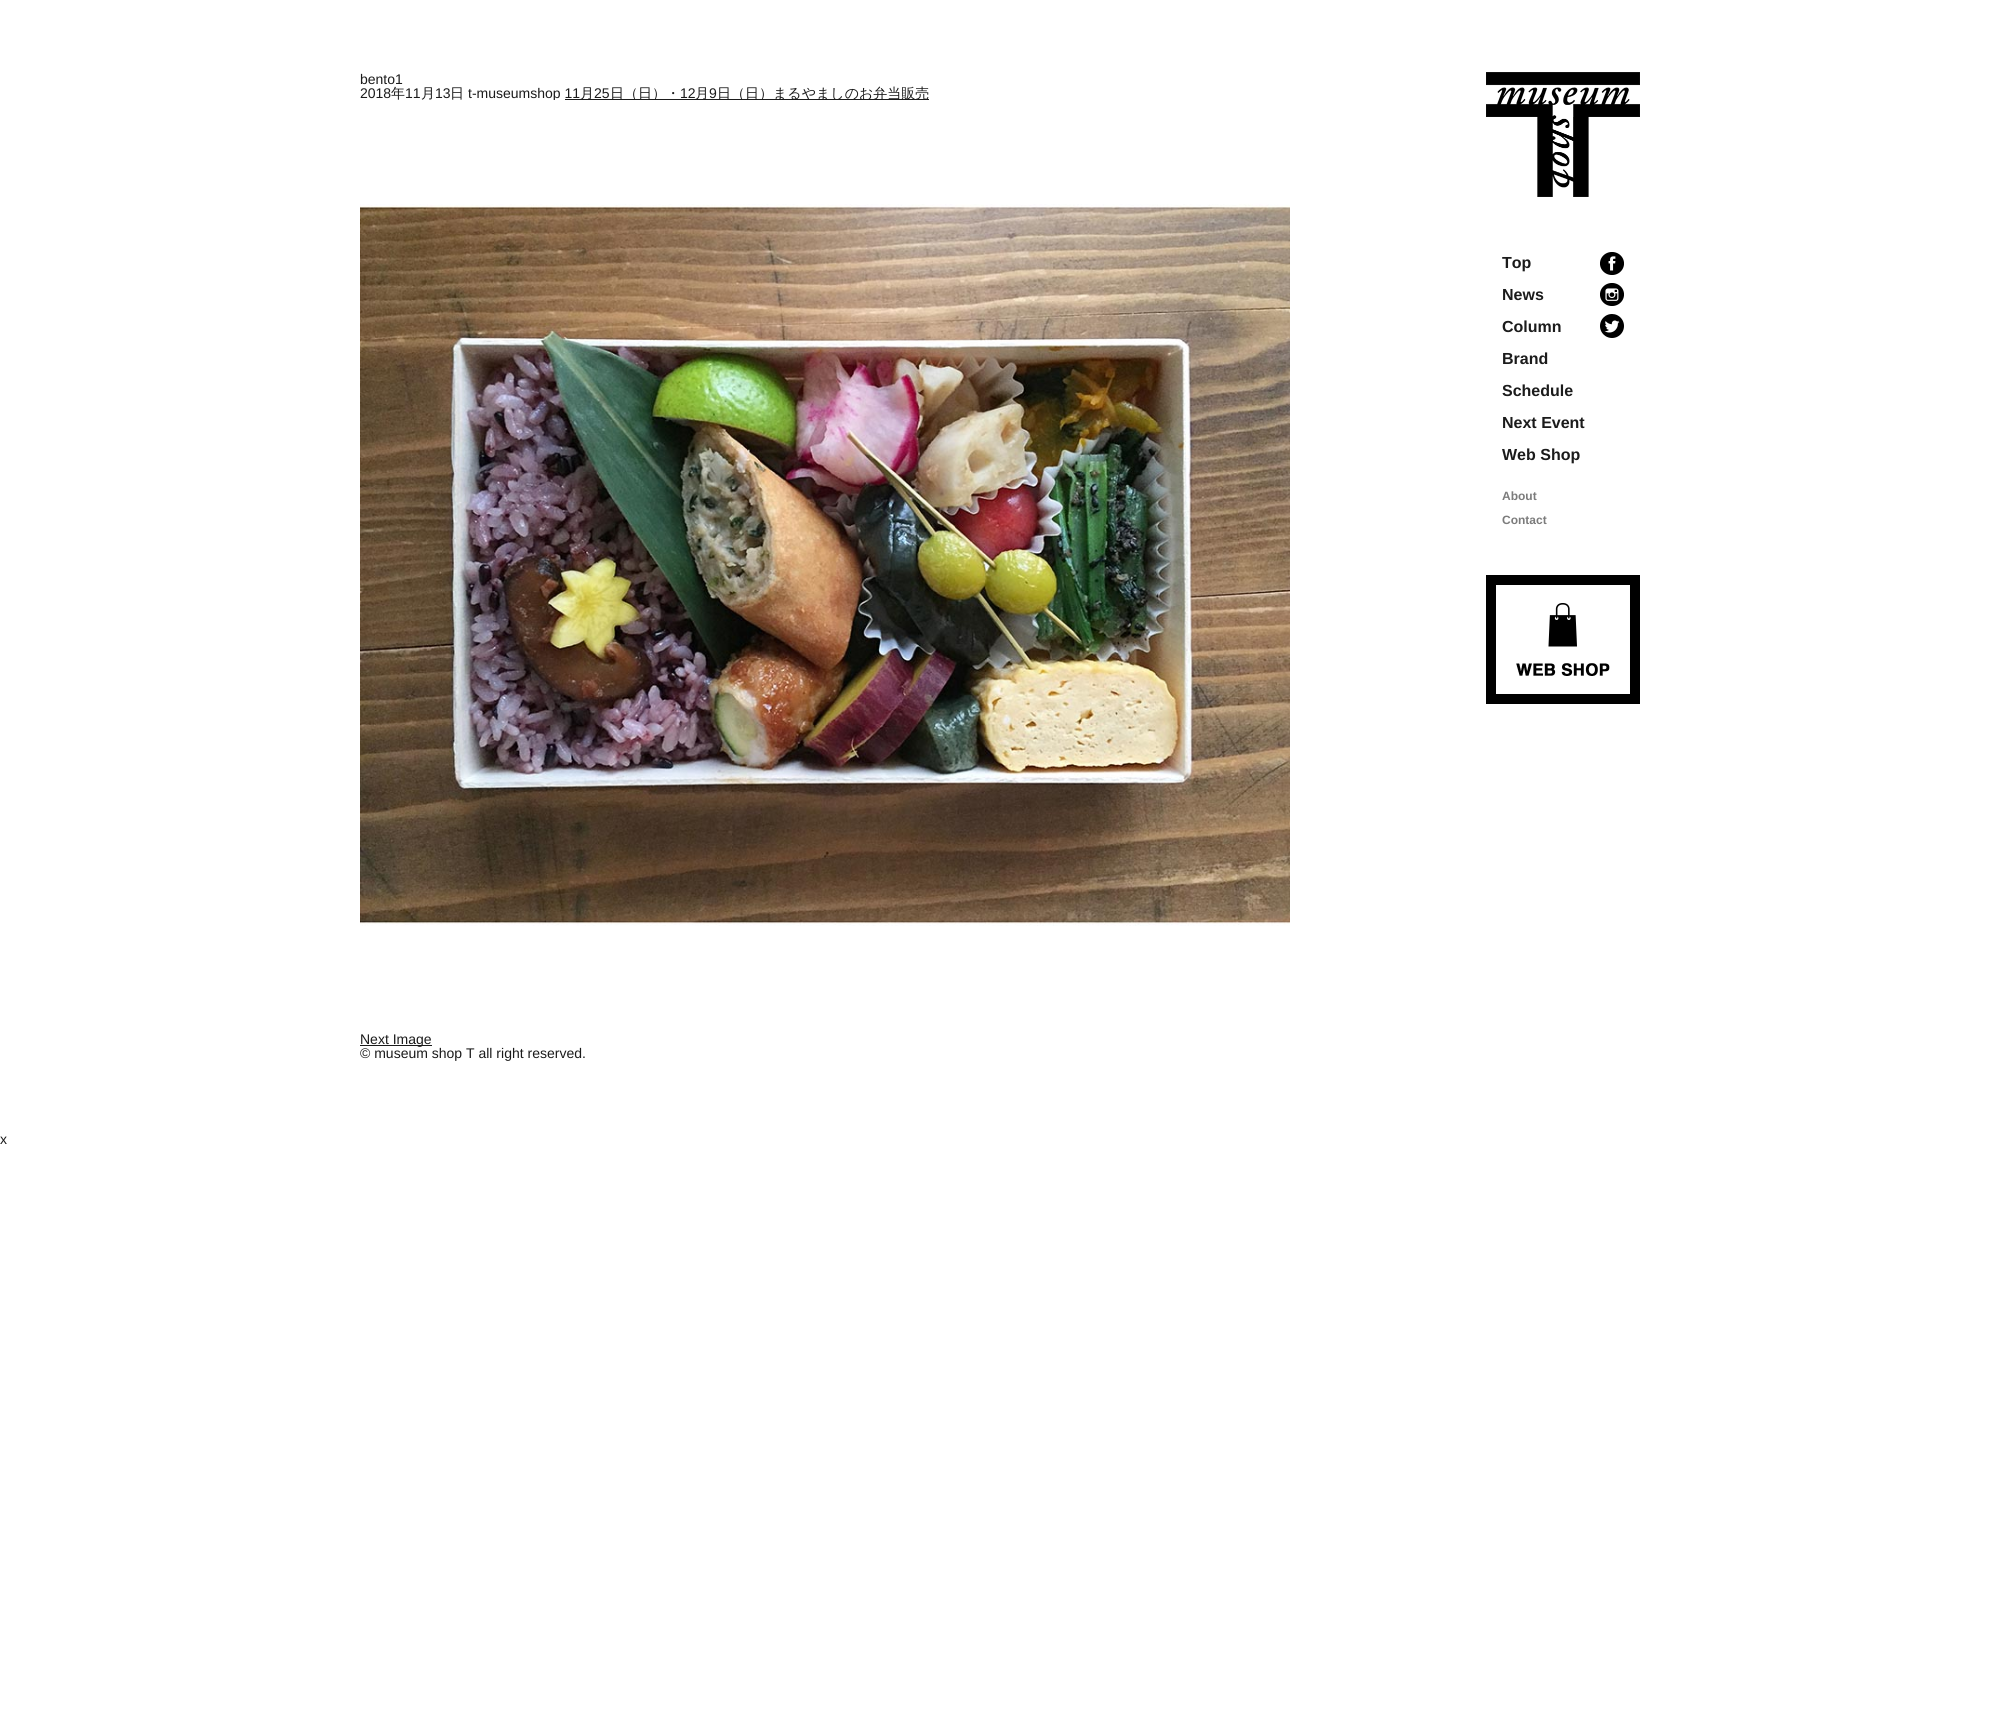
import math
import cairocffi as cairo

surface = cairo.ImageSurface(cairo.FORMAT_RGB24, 2000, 1710)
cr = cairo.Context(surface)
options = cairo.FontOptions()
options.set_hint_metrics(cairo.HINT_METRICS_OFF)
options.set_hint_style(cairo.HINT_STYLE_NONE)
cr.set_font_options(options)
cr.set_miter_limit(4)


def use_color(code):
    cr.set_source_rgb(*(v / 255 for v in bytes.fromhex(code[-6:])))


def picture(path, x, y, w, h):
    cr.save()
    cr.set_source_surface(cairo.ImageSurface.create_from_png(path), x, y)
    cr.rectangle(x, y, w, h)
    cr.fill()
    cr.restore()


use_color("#ffffff")
cr.paint()
cr.select_font_face("Liberation Sans")
cr.set_font_size(14)
use_color("#1b1b1b")
cr.move_to(360, 84)
cr.show_text("bento1")
cr.move_to(360, 98)
cr.show_text("2018")
cr.select_font_face("WenQuanYi Zen Hei Medium")
cr.move_to(391, 98)
cr.show_text("年")
cr.select_font_face("Liberation Sans")
cr.move_to(405, 98)
cr.show_text("11")
cr.select_font_face("WenQuanYi Zen Hei Medium")
cr.move_to(421, 98)
cr.show_text("月")
cr.select_font_face("Liberation Sans")
cr.move_to(435, 98)
cr.show_text("13")
cr.select_font_face("WenQuanYi Zen Hei Medium")
cr.move_to(450, 98)
cr.show_text("日")
cr.select_font_face("Liberation Sans")
cr.move_to(468, 98)
cr.show_text("t-museumshop 11")
cr.rectangle(565, 99, 364, 1)
cr.fill()
cr.select_font_face("WenQuanYi Zen Hei Medium")
cr.move_to(580, 98)
cr.show_text("月")
cr.select_font_face("Liberation Sans")
cr.move_to(594, 98)
cr.show_text("25")
cr.select_font_face("WenQuanYi Zen Hei Medium")
cr.move_to(610, 98)
cr.show_text("日（日）・")
cr.select_font_face("Liberation Sans")
cr.move_to(680, 98)
cr.show_text("12")
cr.select_font_face("WenQuanYi Zen Hei Medium")
cr.move_to(695, 98)
cr.show_text("月")
cr.select_font_face("Liberation Sans")
cr.move_to(709, 98)
cr.show_text("9")
cr.select_font_face("WenQuanYi Zen Hei Medium")
cr.move_to(717, 98)
cr.show_text("日（日）まるやましのお弁当販売")
picture("img1.png", 360, 100, 930, 826)
cr.rectangle(360, 1045, 72, 1)
cr.fill()
cr.select_font_face("Liberation Sans")
cr.move_to(360, 1044)
cr.show_text("Next Image")
picture("img2.png", 1486, 72, 154, 125)
cr.select_font_face("Liberation Sans", cairo.FONT_SLANT_NORMAL, cairo.FONT_WEIGHT_BOLD)
cr.set_font_size(16)
cr.move_to(1502, 268)
cr.show_text("Top")
cr.move_to(1502, 300)
cr.show_text("News")
cr.move_to(1502, 332)
cr.show_text("Column")
cr.move_to(1502, 364)
cr.show_text("Brand")
cr.move_to(1502, 396)
cr.show_text("Schedule")
cr.move_to(1502, 428)
cr.show_text("Next Event")
cr.move_to(1502, 460)
cr.show_text("Web Shop")
cr.set_font_size(12)
use_color("#7c7c7c")
cr.move_to(1502, 500)
cr.show_text("About")
cr.move_to(1502, 524)
cr.show_text("Contact")
picture("img3.png", 1600, 252, 24, 23)
picture("img4.png", 1600, 283, 24, 23)
picture("img5.png", 1600, 314, 24, 24)
picture("img6.png", 1486, 575, 154, 129)
cr.select_font_face("Liberation Sans")
cr.set_font_size(14)
use_color("#1b1b1b")
cr.move_to(360, 1058)
cr.show_text("© museum shop T all right reserved.")
cr.move_to(0, 1144)
cr.show_text("x")
surface.write_to_png("result.png")
